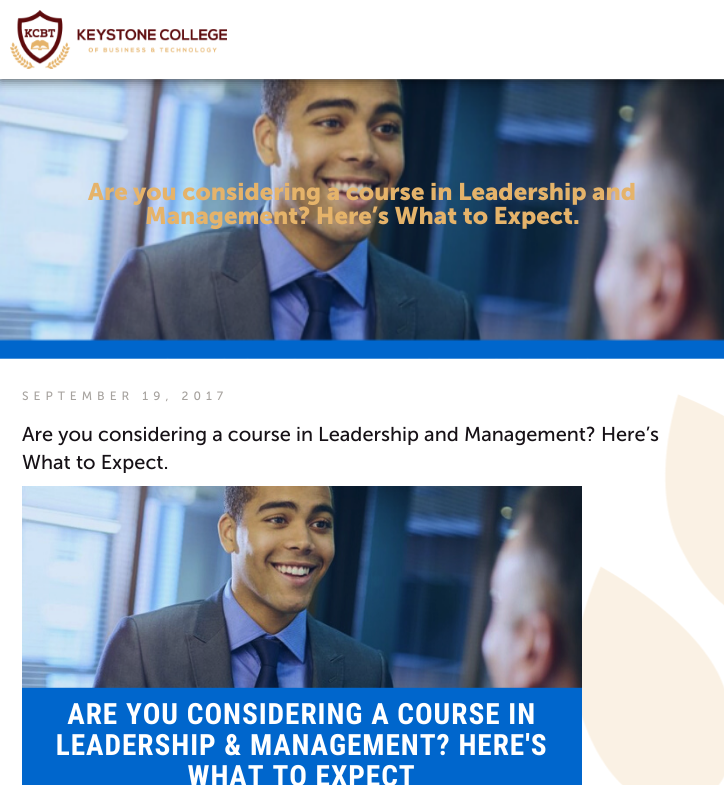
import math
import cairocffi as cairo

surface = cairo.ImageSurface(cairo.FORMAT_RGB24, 724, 785)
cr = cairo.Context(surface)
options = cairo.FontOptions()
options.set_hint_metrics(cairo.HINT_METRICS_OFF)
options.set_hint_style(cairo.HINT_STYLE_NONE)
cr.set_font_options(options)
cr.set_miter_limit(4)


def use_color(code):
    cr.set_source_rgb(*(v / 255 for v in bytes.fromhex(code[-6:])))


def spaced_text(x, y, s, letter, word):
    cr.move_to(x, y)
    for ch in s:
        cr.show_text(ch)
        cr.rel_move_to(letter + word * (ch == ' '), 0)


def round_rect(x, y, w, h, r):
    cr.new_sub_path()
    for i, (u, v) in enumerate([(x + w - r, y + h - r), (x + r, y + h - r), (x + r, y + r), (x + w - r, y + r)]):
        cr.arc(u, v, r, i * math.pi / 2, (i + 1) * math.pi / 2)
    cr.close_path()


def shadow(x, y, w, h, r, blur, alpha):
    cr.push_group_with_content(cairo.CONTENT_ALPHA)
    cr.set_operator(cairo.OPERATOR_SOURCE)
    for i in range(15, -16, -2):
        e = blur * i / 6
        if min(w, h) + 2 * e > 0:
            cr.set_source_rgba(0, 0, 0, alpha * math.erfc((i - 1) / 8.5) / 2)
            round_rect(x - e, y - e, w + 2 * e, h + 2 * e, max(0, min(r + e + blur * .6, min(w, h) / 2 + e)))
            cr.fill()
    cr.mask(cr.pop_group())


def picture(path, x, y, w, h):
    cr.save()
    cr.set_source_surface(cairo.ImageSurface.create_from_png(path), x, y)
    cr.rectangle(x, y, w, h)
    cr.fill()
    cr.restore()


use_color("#ffffff")
cr.paint()
picture("img2.png", 0, 79, 724, 280)
use_color("#000000")
shadow(0, 0, 724, 79, 0, 6, 0.75)
use_color("#ffffff")
cr.rectangle(0, 0, 724, 79)
cr.fill()
picture("img1.png", 10, 10, 217, 59)
cr.select_font_face("Museo Sans", cairo.FONT_SLANT_NORMAL, cairo.FONT_WEIGHT_BOLD)
cr.set_font_size(24)
use_color("#e5b36a")
cr.move_to(88, 200)
cr.show_text("Are you considering a course in Leadership and")
cr.move_to(145, 224)
cr.show_text("Management? Here’s What to Expect.")
picture("img3.png", 582, 394, 142, 391)
cr.select_font_face("Museo Sans")
cr.set_font_size(12)
use_color("#a6a29e")
spaced_text(22, 400, "SEPTEMBER 19, 2017", 5, 0)
cr.set_font_size(20)
use_color("#161116")
cr.move_to(22, 441)
cr.show_text("Are you considering a course in Leadership and Management? Here’s")
cr.move_to(22, 469)
cr.show_text("What to Expect.")
picture("img4.png", 22, 486, 560, 299)
surface.write_to_png("result.png")
